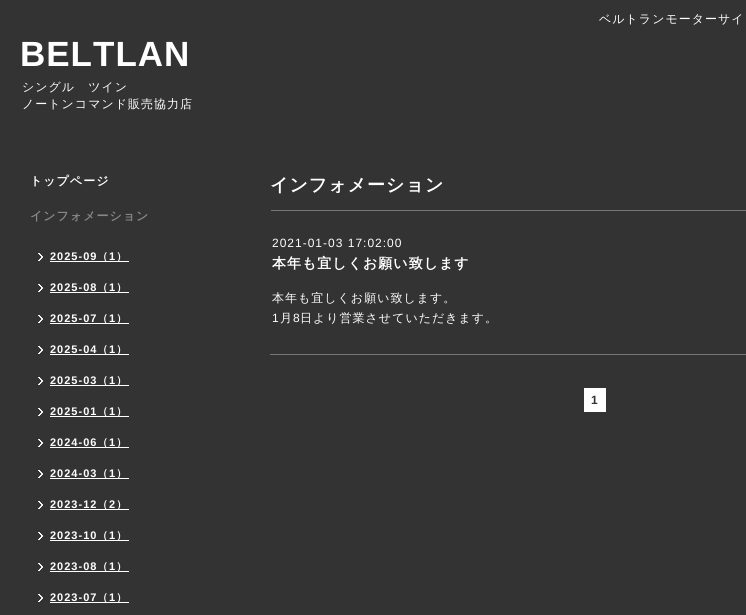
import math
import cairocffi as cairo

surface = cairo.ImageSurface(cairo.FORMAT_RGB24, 746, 615)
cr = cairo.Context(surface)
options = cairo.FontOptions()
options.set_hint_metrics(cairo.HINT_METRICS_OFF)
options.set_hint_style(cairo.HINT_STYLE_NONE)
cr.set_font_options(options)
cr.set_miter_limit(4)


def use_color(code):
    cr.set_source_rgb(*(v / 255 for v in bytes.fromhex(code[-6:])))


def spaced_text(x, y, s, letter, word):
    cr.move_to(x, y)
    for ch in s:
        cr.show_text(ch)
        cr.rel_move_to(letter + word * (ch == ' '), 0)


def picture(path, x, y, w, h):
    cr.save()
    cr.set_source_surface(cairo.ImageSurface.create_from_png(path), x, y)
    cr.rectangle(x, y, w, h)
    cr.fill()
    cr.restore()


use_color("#333333")
cr.paint()
cr.select_font_face("WenQuanYi Zen Hei Medium")
cr.set_font_size(12)
use_color("#ffffff")
spaced_text(599, 23, "ベルトランモーターサイ", 1, 0)
cr.select_font_face("Liberation Sans", cairo.FONT_SLANT_NORMAL, cairo.FONT_WEIGHT_BOLD)
cr.set_font_size(35)
spaced_text(20, 66, "BELTLAN", 1, 0)
cr.select_font_face("WenQuanYi Zen Hei Medium")
cr.set_font_size(12)
spaced_text(22, 91, "シングル　ツイン", 1, 0)
spaced_text(22, 108, "ノートンコマンド販売協力店", 1, 0)
cr.select_font_face("WenQuanYi Zen Hei", cairo.FONT_SLANT_NORMAL, cairo.FONT_WEIGHT_BOLD)
spaced_text(30, 185, "トップページ", 1, 0)
use_color("#878787")
spaced_text(30, 220, "インフォメーション", 1, 0)
picture("img1.png", 38, 253, 5, 8)
cr.select_font_face("Liberation Sans", cairo.FONT_SLANT_NORMAL, cairo.FONT_WEIGHT_BOLD)
cr.set_font_size(11)
use_color("#ffffff")
spaced_text(50, 260, "2025-09", 1, 0)
cr.rectangle(50, 261, 79, 1)
cr.fill()
cr.select_font_face("WenQuanYi Zen Hei", cairo.FONT_SLANT_NORMAL, cairo.FONT_WEIGHT_BOLD)
spaced_text(97, 260, "（", 1, 0)
cr.select_font_face("Liberation Sans", cairo.FONT_SLANT_NORMAL, cairo.FONT_WEIGHT_BOLD)
spaced_text(109, 260, "1", 1, 0)
cr.select_font_face("WenQuanYi Zen Hei", cairo.FONT_SLANT_NORMAL, cairo.FONT_WEIGHT_BOLD)
spaced_text(116, 260, "）", 1, 0)
picture("img1.png", 38, 284, 5, 8)
cr.select_font_face("Liberation Sans", cairo.FONT_SLANT_NORMAL, cairo.FONT_WEIGHT_BOLD)
spaced_text(50, 291, "2025-08", 1, 0)
cr.rectangle(50, 292, 79, 1)
cr.fill()
cr.select_font_face("WenQuanYi Zen Hei", cairo.FONT_SLANT_NORMAL, cairo.FONT_WEIGHT_BOLD)
spaced_text(97, 291, "（", 1, 0)
cr.select_font_face("Liberation Sans", cairo.FONT_SLANT_NORMAL, cairo.FONT_WEIGHT_BOLD)
spaced_text(109, 291, "1", 1, 0)
cr.select_font_face("WenQuanYi Zen Hei", cairo.FONT_SLANT_NORMAL, cairo.FONT_WEIGHT_BOLD)
spaced_text(116, 291, "）", 1, 0)
picture("img1.png", 38, 315, 5, 8)
cr.select_font_face("Liberation Sans", cairo.FONT_SLANT_NORMAL, cairo.FONT_WEIGHT_BOLD)
spaced_text(50, 322, "2025-07", 1, 0)
cr.rectangle(50, 323, 79, 1)
cr.fill()
cr.select_font_face("WenQuanYi Zen Hei", cairo.FONT_SLANT_NORMAL, cairo.FONT_WEIGHT_BOLD)
spaced_text(97, 322, "（", 1, 0)
cr.select_font_face("Liberation Sans", cairo.FONT_SLANT_NORMAL, cairo.FONT_WEIGHT_BOLD)
spaced_text(109, 322, "1", 1, 0)
cr.select_font_face("WenQuanYi Zen Hei", cairo.FONT_SLANT_NORMAL, cairo.FONT_WEIGHT_BOLD)
spaced_text(116, 322, "）", 1, 0)
picture("img1.png", 38, 346, 5, 8)
cr.select_font_face("Liberation Sans", cairo.FONT_SLANT_NORMAL, cairo.FONT_WEIGHT_BOLD)
spaced_text(50, 353, "2025-04", 1, 0)
cr.rectangle(50, 354, 79, 1)
cr.fill()
cr.select_font_face("WenQuanYi Zen Hei", cairo.FONT_SLANT_NORMAL, cairo.FONT_WEIGHT_BOLD)
spaced_text(97, 353, "（", 1, 0)
cr.select_font_face("Liberation Sans", cairo.FONT_SLANT_NORMAL, cairo.FONT_WEIGHT_BOLD)
spaced_text(109, 353, "1", 1, 0)
cr.select_font_face("WenQuanYi Zen Hei", cairo.FONT_SLANT_NORMAL, cairo.FONT_WEIGHT_BOLD)
spaced_text(116, 353, "）", 1, 0)
picture("img1.png", 38, 377, 5, 8)
cr.select_font_face("Liberation Sans", cairo.FONT_SLANT_NORMAL, cairo.FONT_WEIGHT_BOLD)
spaced_text(50, 384, "2025-03", 1, 0)
cr.rectangle(50, 385, 79, 1)
cr.fill()
cr.select_font_face("WenQuanYi Zen Hei", cairo.FONT_SLANT_NORMAL, cairo.FONT_WEIGHT_BOLD)
spaced_text(97, 384, "（", 1, 0)
cr.select_font_face("Liberation Sans", cairo.FONT_SLANT_NORMAL, cairo.FONT_WEIGHT_BOLD)
spaced_text(109, 384, "1", 1, 0)
cr.select_font_face("WenQuanYi Zen Hei", cairo.FONT_SLANT_NORMAL, cairo.FONT_WEIGHT_BOLD)
spaced_text(116, 384, "）", 1, 0)
picture("img1.png", 38, 408, 5, 8)
cr.select_font_face("Liberation Sans", cairo.FONT_SLANT_NORMAL, cairo.FONT_WEIGHT_BOLD)
spaced_text(50, 415, "2025-01", 1, 0)
cr.rectangle(50, 416, 79, 1)
cr.fill()
cr.select_font_face("WenQuanYi Zen Hei", cairo.FONT_SLANT_NORMAL, cairo.FONT_WEIGHT_BOLD)
spaced_text(97, 415, "（", 1, 0)
cr.select_font_face("Liberation Sans", cairo.FONT_SLANT_NORMAL, cairo.FONT_WEIGHT_BOLD)
spaced_text(109, 415, "1", 1, 0)
cr.select_font_face("WenQuanYi Zen Hei", cairo.FONT_SLANT_NORMAL, cairo.FONT_WEIGHT_BOLD)
spaced_text(116, 415, "）", 1, 0)
picture("img1.png", 38, 439, 5, 8)
cr.select_font_face("Liberation Sans", cairo.FONT_SLANT_NORMAL, cairo.FONT_WEIGHT_BOLD)
spaced_text(50, 446, "2024-06", 1, 0)
cr.rectangle(50, 447, 79, 1)
cr.fill()
cr.select_font_face("WenQuanYi Zen Hei", cairo.FONT_SLANT_NORMAL, cairo.FONT_WEIGHT_BOLD)
spaced_text(97, 446, "（", 1, 0)
cr.select_font_face("Liberation Sans", cairo.FONT_SLANT_NORMAL, cairo.FONT_WEIGHT_BOLD)
spaced_text(109, 446, "1", 1, 0)
cr.select_font_face("WenQuanYi Zen Hei", cairo.FONT_SLANT_NORMAL, cairo.FONT_WEIGHT_BOLD)
spaced_text(116, 446, "）", 1, 0)
picture("img1.png", 38, 470, 5, 8)
cr.select_font_face("Liberation Sans", cairo.FONT_SLANT_NORMAL, cairo.FONT_WEIGHT_BOLD)
spaced_text(50, 477, "2024-03", 1, 0)
cr.rectangle(50, 478, 79, 1)
cr.fill()
cr.select_font_face("WenQuanYi Zen Hei", cairo.FONT_SLANT_NORMAL, cairo.FONT_WEIGHT_BOLD)
spaced_text(97, 477, "（", 1, 0)
cr.select_font_face("Liberation Sans", cairo.FONT_SLANT_NORMAL, cairo.FONT_WEIGHT_BOLD)
spaced_text(109, 477, "1", 1, 0)
cr.select_font_face("WenQuanYi Zen Hei", cairo.FONT_SLANT_NORMAL, cairo.FONT_WEIGHT_BOLD)
spaced_text(116, 477, "）", 1, 0)
picture("img1.png", 38, 501, 5, 8)
cr.select_font_face("Liberation Sans", cairo.FONT_SLANT_NORMAL, cairo.FONT_WEIGHT_BOLD)
spaced_text(50, 508, "2023-12", 1, 0)
cr.rectangle(50, 509, 79, 1)
cr.fill()
cr.select_font_face("WenQuanYi Zen Hei", cairo.FONT_SLANT_NORMAL, cairo.FONT_WEIGHT_BOLD)
spaced_text(97, 508, "（", 1, 0)
cr.select_font_face("Liberation Sans", cairo.FONT_SLANT_NORMAL, cairo.FONT_WEIGHT_BOLD)
spaced_text(109, 508, "2", 1, 0)
cr.select_font_face("WenQuanYi Zen Hei", cairo.FONT_SLANT_NORMAL, cairo.FONT_WEIGHT_BOLD)
spaced_text(116, 508, "）", 1, 0)
picture("img1.png", 38, 532, 5, 8)
cr.select_font_face("Liberation Sans", cairo.FONT_SLANT_NORMAL, cairo.FONT_WEIGHT_BOLD)
spaced_text(50, 539, "2023-10", 1, 0)
cr.rectangle(50, 540, 79, 1)
cr.fill()
cr.select_font_face("WenQuanYi Zen Hei", cairo.FONT_SLANT_NORMAL, cairo.FONT_WEIGHT_BOLD)
spaced_text(97, 539, "（", 1, 0)
cr.select_font_face("Liberation Sans", cairo.FONT_SLANT_NORMAL, cairo.FONT_WEIGHT_BOLD)
spaced_text(109, 539, "1", 1, 0)
cr.select_font_face("WenQuanYi Zen Hei", cairo.FONT_SLANT_NORMAL, cairo.FONT_WEIGHT_BOLD)
spaced_text(116, 539, "）", 1, 0)
picture("img1.png", 38, 563, 5, 8)
cr.select_font_face("Liberation Sans", cairo.FONT_SLANT_NORMAL, cairo.FONT_WEIGHT_BOLD)
spaced_text(50, 570, "2023-08", 1, 0)
cr.rectangle(50, 571, 79, 1)
cr.fill()
cr.select_font_face("WenQuanYi Zen Hei", cairo.FONT_SLANT_NORMAL, cairo.FONT_WEIGHT_BOLD)
spaced_text(97, 570, "（", 1, 0)
cr.select_font_face("Liberation Sans", cairo.FONT_SLANT_NORMAL, cairo.FONT_WEIGHT_BOLD)
spaced_text(109, 570, "1", 1, 0)
cr.select_font_face("WenQuanYi Zen Hei", cairo.FONT_SLANT_NORMAL, cairo.FONT_WEIGHT_BOLD)
spaced_text(116, 570, "）", 1, 0)
picture("img1.png", 38, 594, 5, 8)
cr.select_font_face("Liberation Sans", cairo.FONT_SLANT_NORMAL, cairo.FONT_WEIGHT_BOLD)
spaced_text(50, 601, "2023-07", 1, 0)
cr.rectangle(50, 602, 79, 1)
cr.fill()
cr.select_font_face("WenQuanYi Zen Hei", cairo.FONT_SLANT_NORMAL, cairo.FONT_WEIGHT_BOLD)
spaced_text(97, 601, "（", 1, 0)
cr.select_font_face("Liberation Sans", cairo.FONT_SLANT_NORMAL, cairo.FONT_WEIGHT_BOLD)
spaced_text(109, 601, "1", 1, 0)
cr.select_font_face("WenQuanYi Zen Hei", cairo.FONT_SLANT_NORMAL, cairo.FONT_WEIGHT_BOLD)
spaced_text(116, 601, "）", 1, 0)
cr.set_font_size(18)
spaced_text(270, 191, "インフォメーション", 1, 0)
use_color("#777777")
cr.rectangle(270, 354, 476, 1)
cr.fill()
cr.rectangle(271, 210, 475, 1)
cr.fill()
cr.select_font_face("Liberation Sans")
cr.set_font_size(12)
use_color("#ffffff")
spaced_text(272, 247, "2021-01-03 17:02:00", 1, 0)
cr.select_font_face("WenQuanYi Zen Hei", cairo.FONT_SLANT_NORMAL, cairo.FONT_WEIGHT_BOLD)
cr.set_font_size(14)
spaced_text(272, 268, "本年も宜しくお願い致します", 1, 0)
cr.select_font_face("WenQuanYi Zen Hei Medium")
cr.set_font_size(12)
spaced_text(272, 302, "本年も宜しくお願い致します。", 1, 0)
cr.select_font_face("Liberation Sans")
spaced_text(272, 322, "1", 1, 0)
cr.select_font_face("WenQuanYi Zen Hei Medium")
spaced_text(280, 322, "月", 1, 0)
cr.select_font_face("Liberation Sans")
spaced_text(293, 322, "8", 1, 0)
cr.select_font_face("WenQuanYi Zen Hei Medium")
spaced_text(300, 322, "日より営業させていただきます。", 1, 0)
cr.rectangle(584, 388, 22, 24)
cr.fill()
cr.select_font_face("Liberation Sans", cairo.FONT_SLANT_NORMAL, cairo.FONT_WEIGHT_BOLD)
use_color("#333333")
spaced_text(591, 404, "1", 1, 0)
surface.write_to_png("result.png")
